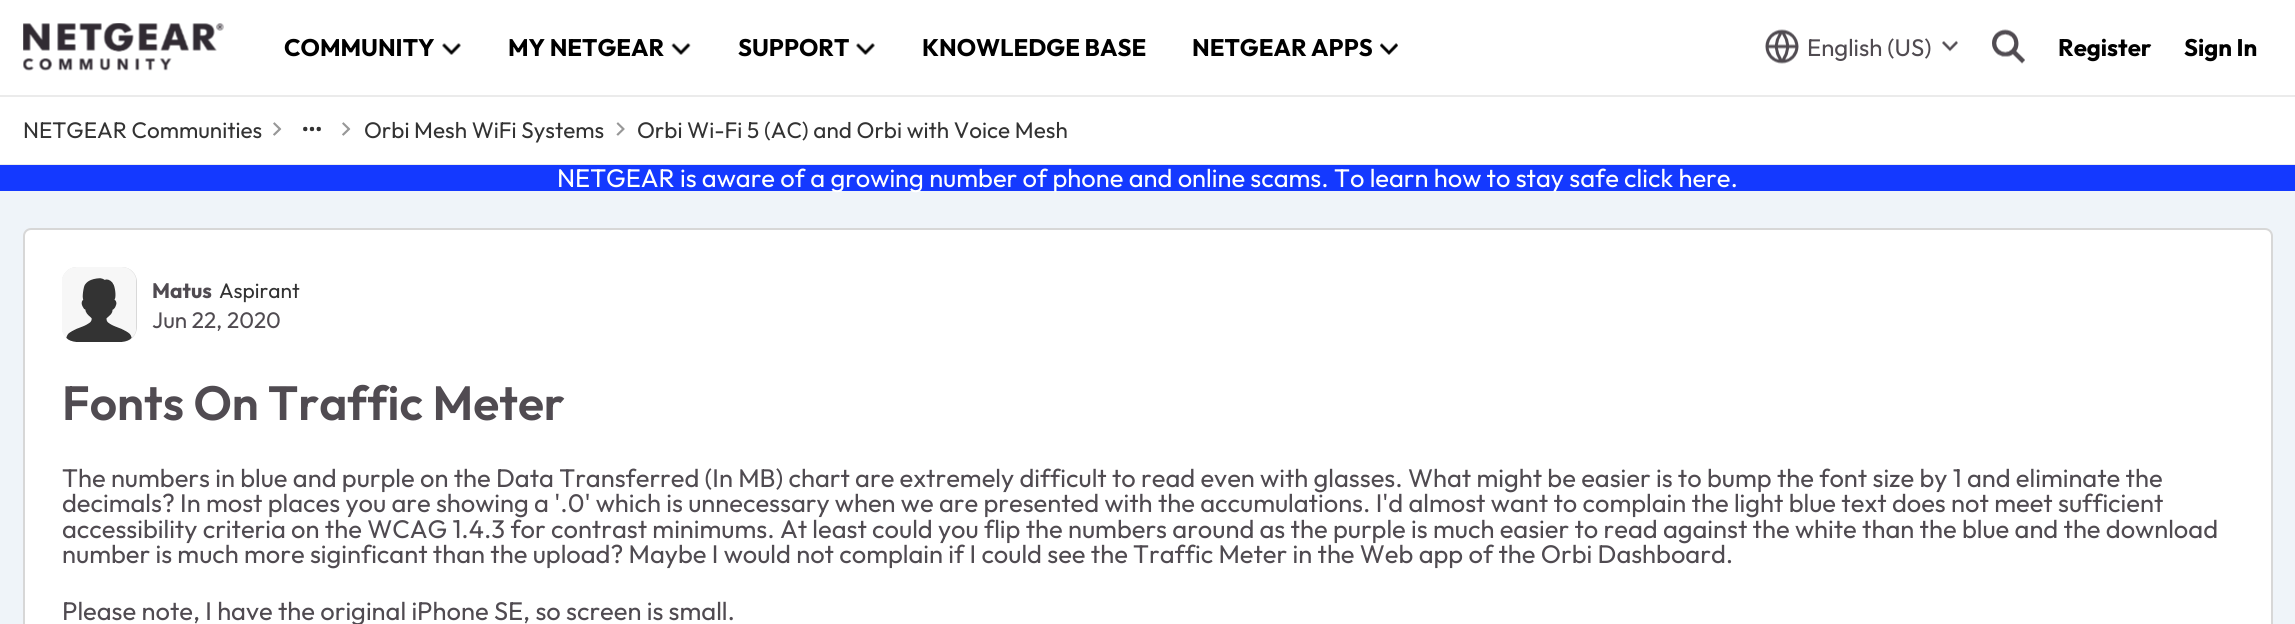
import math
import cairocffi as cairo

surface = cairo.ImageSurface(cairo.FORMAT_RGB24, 2295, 624)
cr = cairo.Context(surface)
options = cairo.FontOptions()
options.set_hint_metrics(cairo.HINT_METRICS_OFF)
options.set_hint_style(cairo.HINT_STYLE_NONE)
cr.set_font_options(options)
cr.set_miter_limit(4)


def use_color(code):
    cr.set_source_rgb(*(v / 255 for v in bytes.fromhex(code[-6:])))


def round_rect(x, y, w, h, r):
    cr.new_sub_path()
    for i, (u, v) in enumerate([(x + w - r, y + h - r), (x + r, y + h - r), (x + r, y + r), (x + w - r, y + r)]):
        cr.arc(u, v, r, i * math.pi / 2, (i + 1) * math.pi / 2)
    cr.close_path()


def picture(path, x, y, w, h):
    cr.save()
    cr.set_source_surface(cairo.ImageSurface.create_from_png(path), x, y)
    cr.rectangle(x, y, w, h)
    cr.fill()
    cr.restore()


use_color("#eff4f9")
cr.paint()
use_color("#ffffff")
cr.rectangle(0, 0, 2295, 164)
cr.fill()
cr.set_source_rgba(0, 0, 0, 0.08)
cr.rectangle(0, 95, 2295, 2)
cr.fill()
picture("img1.png", 23, 23, 201, 48)
cr.select_font_face("Outfit", cairo.FONT_SLANT_NORMAL, cairo.FONT_WEIGHT_BOLD)
cr.set_font_size(24)
use_color("#000000")
cr.move_to(284, 56)
cr.show_text("COMMUNITY")
picture("img2.png", 442, 43, 19, 12)
cr.move_to(508, 56)
cr.show_text("MY NETGEAR")
picture("img3.png", 671, 43, 20, 12)
cr.move_to(738, 56)
cr.show_text("SUPPORT")
picture("img2.png", 856, 43, 19, 12)
cr.move_to(922, 56)
cr.show_text("KNOWLEDGE BASE")
cr.move_to(1192, 56)
cr.show_text("NETGEAR APPS")
picture("img4.png", 1380, 43, 18, 12)
picture("img5.png", 1765, 29, 34, 35)
cr.select_font_face("Outfit")
use_color("#504b51")
cr.move_to(1807, 56)
cr.show_text("English (US)")
picture("img6.png", 1942, 40, 16, 12)
picture("img7.png", 1992, 29, 33, 35)
cr.select_font_face("Outfit", cairo.FONT_SLANT_NORMAL, cairo.FONT_WEIGHT_BOLD)
use_color("#000000")
cr.move_to(2058, 56)
cr.show_text("Register")
cr.move_to(2184, 56)
cr.show_text("Sign In")
use_color("#ebebeb")
cr.rectangle(0, 164, 2295, 1)
cr.fill()
cr.select_font_face("Outfit")
cr.set_font_size(22.5)
use_color("#333333")
cr.move_to(23, 138)
cr.show_text("NETGEAR Communities")
picture("img8.png", 273, 122, 9, 14)
picture("img9.png", 303, 126, 18, 6)
picture("img8.png", 342, 122, 9, 14)
cr.move_to(364, 138)
cr.show_text("Orbi Mesh WiFi Systems")
picture("img10.png", 616, 122, 9, 14)
cr.save()
cr.rectangle(638, 111, 430, 38)
cr.clip()
cr.move_to(637, 138)
cr.show_text("Orbi Wi-Fi 5 (AC) and Orbi with Voice Mesh")
cr.restore()
use_color("#1439ff")
cr.rectangle(0, 165, 2295, 26)
cr.fill()
cr.set_font_size(25.5)
use_color("#ffffff")
cr.move_to(557, 187)
cr.show_text("NETGEAR is aware of a growing number of phone and online scams. To learn how to stay safe click here.")
round_rect(23, 228, 2250, 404, 8)
cr.fill()
round_rect(24, 229, 2248, 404, 7)
cr.set_source_rgba(0, 0, 0, 0.16)
cr.stroke()
use_color("#d9d9d9")
round_rect(62, 267, 75, 75, 15)
cr.fill()
picture("img11.png", 62, 267, 74, 75)
cr.select_font_face("Outfit", cairo.FONT_SLANT_NORMAL, cairo.FONT_WEIGHT_BOLD)
cr.set_font_size(21)
use_color("#504b51")
cr.move_to(152, 298)
cr.show_text("Matus")
cr.select_font_face("Outfit")
use_color("#333333")
cr.move_to(219, 298)
cr.show_text("Aspirant")
cr.set_font_size(22.5)
use_color("#504b51")
cr.move_to(152, 328)
cr.show_text("Jun 22, 2020")
cr.select_font_face("Outfit SemiBold")
cr.set_font_size(48)
cr.move_to(62, 420)
cr.show_text("Fonts On Traffic Meter")
cr.select_font_face("Outfit")
cr.set_font_size(25.5)
cr.move_to(62, 487)
cr.show_text("The numbers in blue and purple on the Data Transferred (In MB) chart are extremely difficult to read even with glasses. What might be easier is to bump the font size by 1 and eliminate the")
cr.move_to(62, 512)
cr.show_text("decimals? In most places you are showing a '.0' which is unnecessary when we are presented with the accumulations. I'd almost want to complain the light blue text does not meet sufficient")
cr.move_to(62, 538)
cr.show_text("accessibility criteria on the WCAG 1.4.3 for contrast minimums. At least could you flip the numbers around as the purple is much easier to read against the white than the blue and the download")
cr.move_to(62, 563)
cr.show_text("number is much more siginficant than the upload? Maybe I would not complain if I could see the Traffic Meter in the Web app of the Orbi Dashboard.")
cr.move_to(62, 620)
cr.show_text("Please note, I have the original iPhone SE, so screen is small.")
surface.write_to_png("result.png")
